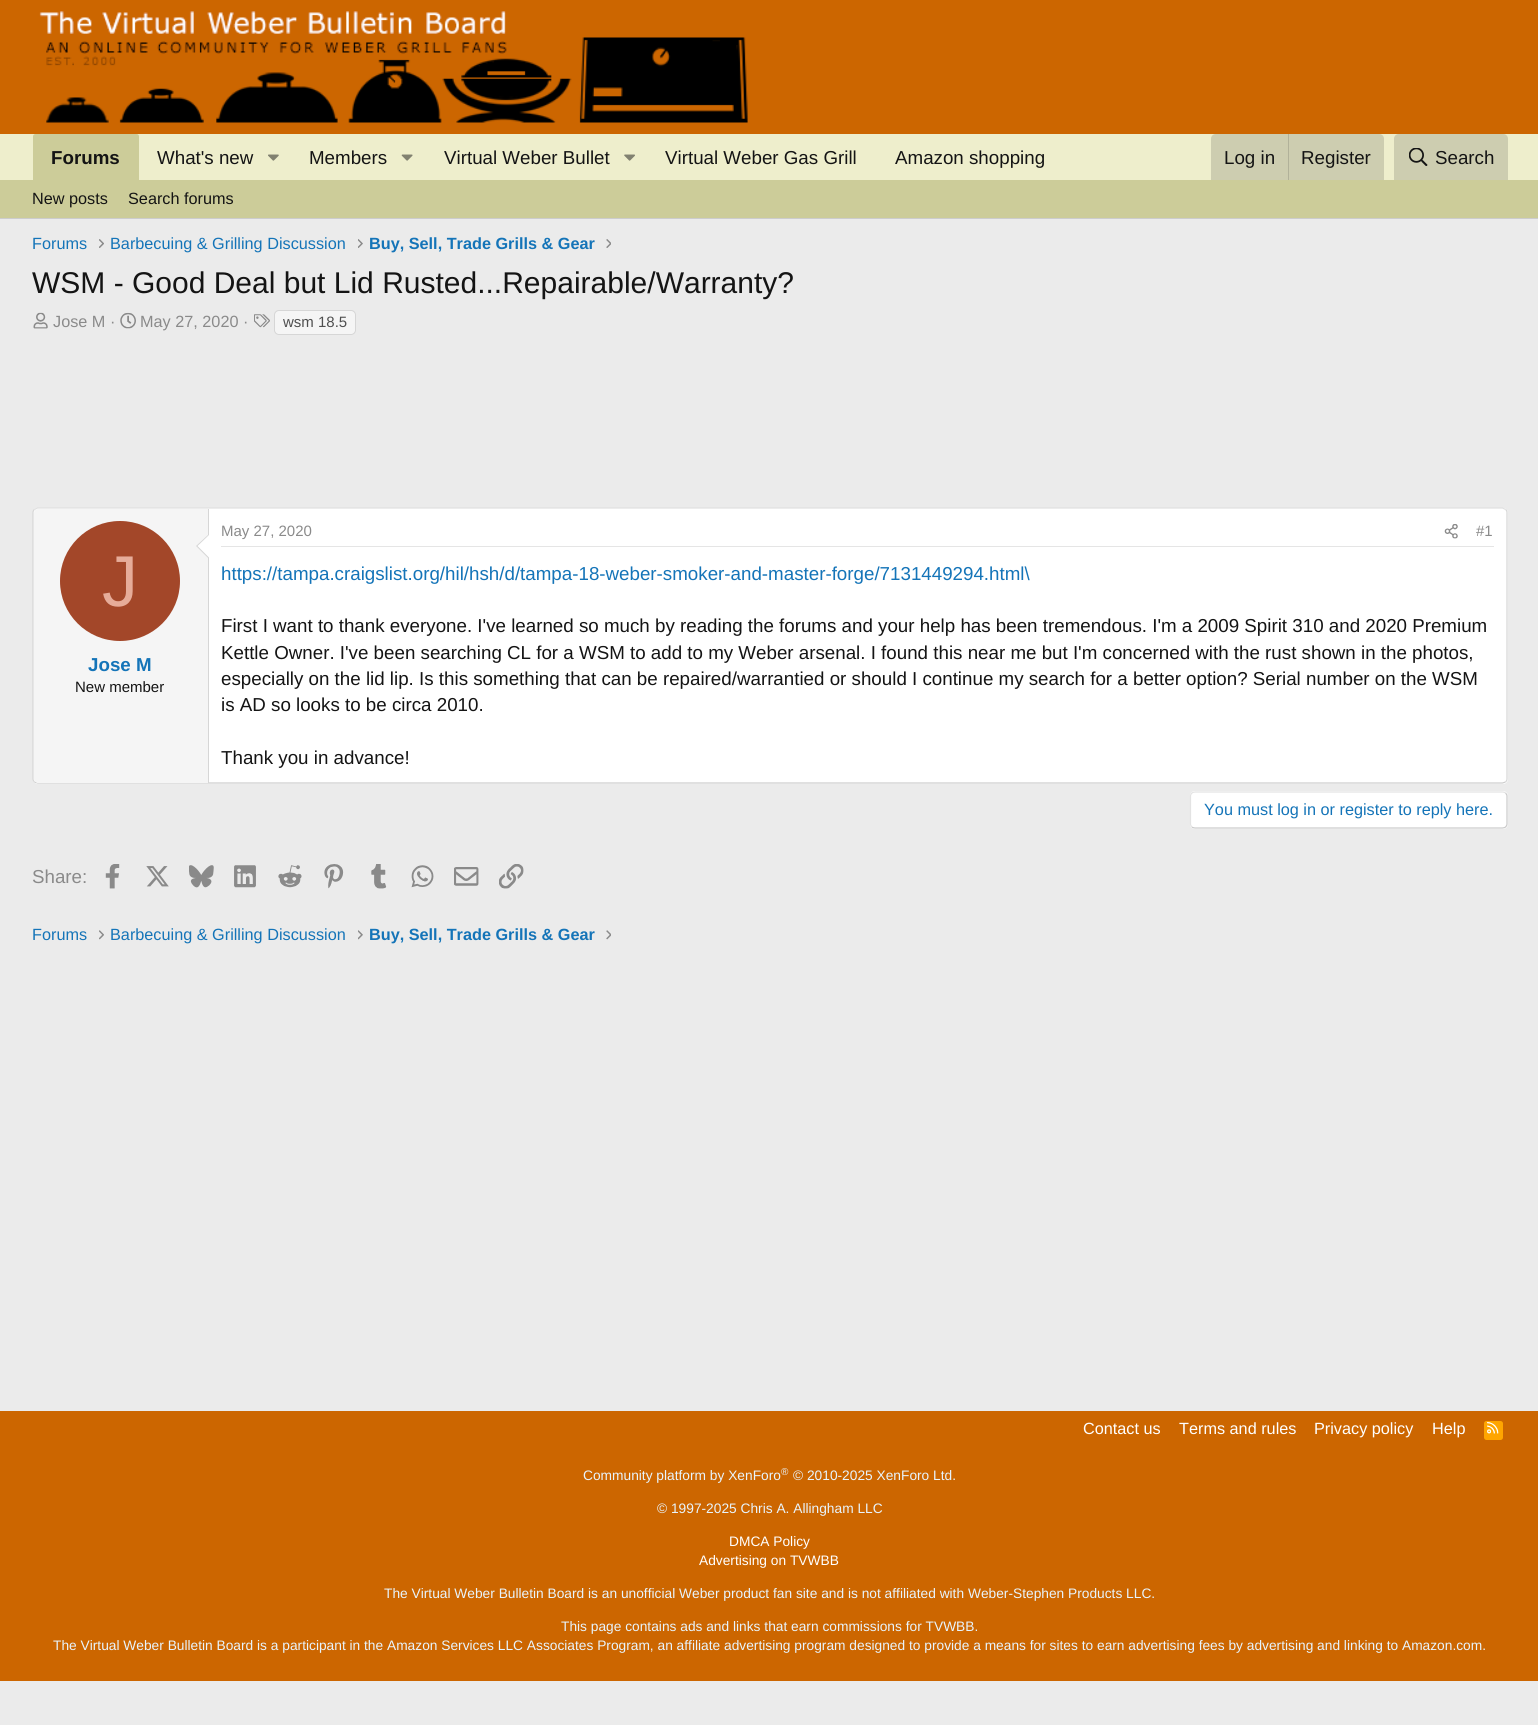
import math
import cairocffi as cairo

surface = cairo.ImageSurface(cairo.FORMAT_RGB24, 1538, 1725)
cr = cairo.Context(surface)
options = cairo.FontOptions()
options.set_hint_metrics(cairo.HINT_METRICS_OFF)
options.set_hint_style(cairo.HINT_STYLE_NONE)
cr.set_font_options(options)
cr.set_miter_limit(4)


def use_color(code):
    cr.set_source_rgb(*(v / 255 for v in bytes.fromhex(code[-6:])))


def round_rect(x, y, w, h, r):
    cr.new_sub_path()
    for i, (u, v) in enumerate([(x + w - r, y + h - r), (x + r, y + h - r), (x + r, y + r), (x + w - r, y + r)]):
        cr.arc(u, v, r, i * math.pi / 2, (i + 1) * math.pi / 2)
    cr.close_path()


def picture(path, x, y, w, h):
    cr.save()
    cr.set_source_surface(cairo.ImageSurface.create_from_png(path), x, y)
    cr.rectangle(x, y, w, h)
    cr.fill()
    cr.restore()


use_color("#ebebeb")
cr.paint()
use_color("#cc6600")
cr.rectangle(0, 0, 1538, 134)
cr.fill()
picture("img1.png", 39, 11, 709, 112)
use_color("#eeeecc")
cr.rectangle(0, 134, 1538, 46)
cr.fill()
use_color("#cccc99")
cr.new_path()
cr.move_to(35.5, 134)
cr.line_to(136.5, 134)
cr.curve_to(138, 134, 139, 135, 139, 136.5)
cr.line_to(139, 180)
cr.line_to(33, 180)
cr.line_to(33, 136.5)
cr.curve_to(33, 135, 34, 134, 35.5, 134)
cr.close_path()
cr.fill()
cr.select_font_face("Liberation Sans", cairo.FONT_SLANT_NORMAL, cairo.FONT_WEIGHT_BOLD)
cr.set_font_size(18.75)
use_color("#141414")
cr.move_to(51, 164)
cr.show_text("Forums")
cr.select_font_face("Liberation Sans")
cr.move_to(157, 164)
cr.show_text("What's new")
picture("img2.png", 268, 154, 11, 7)
cr.move_to(309, 164)
cr.show_text("Members")
picture("img3.png", 401, 154, 12, 7)
cr.move_to(444, 164)
cr.show_text("Virtual Weber Bullet")
picture("img4.png", 624, 154, 11, 7)
cr.move_to(665, 164)
cr.show_text("Virtual Weber Gas Grill")
cr.move_to(895, 164)
cr.show_text("Amazon shopping")
use_color("#cdcdb0")
cr.new_path()
cr.move_to(1216, 134)
cr.line_to(1379, 134)
cr.curve_to(1382, 134, 1384, 136, 1384, 139)
cr.line_to(1384, 180)
cr.line_to(1211, 180)
cr.line_to(1211, 139)
cr.curve_to(1211, 136, 1213, 134, 1216, 134)
cr.close_path()
cr.fill()
use_color("#141414")
cr.move_to(1224, 164)
cr.show_text("Log in")
use_color("#b1b199")
cr.rectangle(1288, 134, 1, 46)
cr.fill()
use_color("#141414")
cr.move_to(1301, 164)
cr.show_text("Register")
use_color("#cdcdb0")
cr.new_path()
cr.move_to(1399, 134)
cr.line_to(1503, 134)
cr.curve_to(1506, 134, 1508, 136, 1508, 139)
cr.line_to(1508, 180)
cr.line_to(1394, 180)
cr.line_to(1394, 139)
cr.curve_to(1394, 136, 1396, 134, 1399, 134)
cr.close_path()
cr.fill()
picture("img5.png", 1409, 148, 19, 18)
use_color("#141414")
cr.move_to(1435, 164)
cr.show_text("Search")
use_color("#cccc99")
cr.rectangle(0, 180, 1538, 38)
cr.fill()
use_color("#cccccc")
cr.rectangle(0, 218, 1538, 1)
cr.fill()
cr.set_font_size(16.25)
use_color("#141414")
cr.move_to(32, 204)
cr.show_text("New posts")
cr.move_to(128, 204)
cr.show_text("Search forums")
use_color("#1474b8")
cr.move_to(32, 249)
cr.show_text("Forums")
picture("img6.png", 99, 239, 5, 9)
cr.move_to(110, 249)
cr.show_text("Barbecuing & Grilling Discussion")
picture("img7.png", 358, 239, 5, 9)
cr.select_font_face("Liberation Sans", cairo.FONT_SLANT_NORMAL, cairo.FONT_WEIGHT_BOLD)
cr.move_to(369, 249)
cr.show_text("Buy, Sell, Trade Grills & Gear")
picture("img8.png", 606, 239, 5, 9)
cr.select_font_face("Liberation Sans")
cr.set_font_size(30)
use_color("#141414")
cr.move_to(32, 293)
cr.show_text("WSM - Good Deal but Lid Rusted...Repairable/Warranty?")
picture("img9.png", 33, 312, 15, 17)
cr.set_font_size(16.25)
use_color("#8a8a8a")
cr.move_to(53, 327)
cr.show_text("Jose M ·")
picture("img10.png", 120, 312, 16, 17)
cr.move_to(140, 327)
cr.show_text("May 27, 2020 ·")
picture("img11.png", 254, 314, 16, 14)
use_color("#f5f5f5")
round_rect(274.5, 310.5, 81, 24, 4.5)
cr.fill_preserve()
use_color("#d6d6d6")
cr.set_line_width(1)
cr.stroke()
cr.set_font_size(15)
use_color("#4f4f4f")
cr.move_to(283, 327)
cr.show_text("wsm 18.5")
use_color("#ffffff")
round_rect(33, 508, 1475, 276, 5)
cr.fill()
cr.new_path()
cr.move_to(34.5, 509.5)
cr.line_to(37.5, 508)
cr.line_to(1502.5, 508)
cr.line_to(1505.5, 509.5)
use_color("#e0e0e0")
cr.set_line_width(1.2)
cr.stroke()
cr.new_path()
cr.move_to(1505.5, 509.5)
cr.curve_to(1506.5, 510, 1507, 511.5, 1507, 512.5)
cr.line_to(1507, 779)
cr.curve_to(1507, 780, 1506.5, 781, 1505.5, 782)
use_color("#d6d6d6")
cr.stroke()
cr.new_path()
cr.move_to(1505.5, 782)
cr.line_to(1502.5, 783)
cr.line_to(37.5, 783)
cr.line_to(34.5, 782)
use_color("#cccccc")
cr.stroke()
cr.new_path()
cr.move_to(34.5, 782)
cr.curve_to(33.5, 781, 33, 780, 33, 779)
cr.line_to(33, 512.5)
cr.curve_to(33, 511.5, 33.5, 510, 34.5, 509.5)
use_color("#d6d6d6")
cr.stroke()
use_color("#f5f5f5")
cr.new_path()
cr.move_to(38, 509)
cr.line_to(209, 509)
cr.line_to(209, 783)
cr.line_to(38, 783)
cr.curve_to(36, 783, 34, 781, 34, 779)
cr.line_to(34, 513)
cr.curve_to(34, 511, 36, 509, 38, 509)
cr.close_path()
cr.fill()
use_color("#d6d6d6")
cr.rectangle(208, 509, 1, 274)
cr.fill()
cr.new_path()
cr.move_to(209, 534)
cr.line_to(209, 559)
cr.line_to(196, 546)
cr.close_path()
cr.fill()
use_color("#ffffff")
cr.new_path()
cr.move_to(209, 535)
cr.line_to(209, 557.5)
cr.line_to(197.5, 546)
cr.close_path()
cr.fill()
use_color("#a34729")
cr.arc(120, 581, 60, 0, 2 * math.pi)
cr.fill()
cr.set_font_size(72)
use_color("#e6ac99")
cr.move_to(102, 606)
cr.show_text("J")
cr.select_font_face("Liberation Sans", cairo.FONT_SLANT_NORMAL, cairo.FONT_WEIGHT_BOLD)
cr.set_font_size(18.75)
use_color("#1474b8")
cr.move_to(88, 671)
cr.show_text("Jose M")
cr.select_font_face("Liberation Sans")
cr.set_font_size(15)
use_color("#141414")
cr.move_to(75, 692)
cr.show_text("New member")
use_color("#e5e5e5")
cr.rectangle(221, 546, 1273, 1)
cr.fill()
use_color("#8a8a8a")
cr.move_to(221, 536)
cr.show_text("May 27, 2020")
picture("img12.png", 1444, 524, 14, 15)
cr.move_to(1476, 536)
cr.show_text("#1")
cr.set_font_size(18.75)
use_color("#1474b8")
cr.move_to(221, 580)
cr.show_text("https://tampa.craigslist.org/hil/hsh/d/tampa-18-weber-smoker-and-master-forge/7131449294.html\\")
use_color("#141414")
cr.move_to(221, 632)
cr.show_text("First I want to thank everyone. I've learned so much by reading the forums and your help has been tremendous. I'm a 2009 Spirit 310 and 2020 Premium")
cr.move_to(221, 659)
cr.show_text("Kettle Owner. I've been searching CL for a WSM to add to my Weber arsenal. I found this near me but I'm concerned with the rust shown in the photos,")
cr.move_to(221, 685)
cr.show_text("especially on the lid lip. Is this something that can be repaired/warrantied or should I continue my search for a better option? Serial number on the WSM")
cr.move_to(221, 711)
cr.show_text("is AD so looks to be circa 2010.")
cr.move_to(221, 764)
cr.show_text("Thank you in advance!")
use_color("#ffffff")
round_rect(1190, 791, 318, 38, 5)
cr.fill()
cr.new_path()
cr.move_to(1505.5, 793)
cr.curve_to(1506.5, 794, 1507, 795, 1507, 796)
cr.line_to(1507, 824)
cr.curve_to(1507, 825, 1506.5, 826, 1505.5, 827)
cr.curve_to(1505, 827.5, 1503.5, 828, 1502.5, 828)
cr.line_to(1195, 828)
cr.curve_to(1194, 828, 1192.5, 827.5, 1192, 827)
use_color("#c9c9c9")
cr.stroke()
cr.new_path()
cr.move_to(1192, 827)
cr.curve_to(1191, 826, 1190.5, 825, 1190.5, 824)
cr.line_to(1190.5, 796)
cr.curve_to(1190.5, 795, 1191, 794, 1192, 793)
cr.curve_to(1192.5, 792.5, 1194, 792, 1195, 792)
cr.line_to(1502.5, 792)
cr.curve_to(1503.5, 792, 1505, 792.5, 1505.5, 793)
use_color("#e3e3e3")
cr.stroke()
cr.set_font_size(16.25)
use_color("#1474b8")
cr.move_to(1204, 815)
cr.show_text("You must log in or register to reply here.")
cr.set_font_size(18.75)
use_color("#8a8a8a")
cr.move_to(32, 883)
cr.show_text("Share:")
picture("img13.png", 105, 864, 15, 25)
picture("img14.png", 146, 866, 23, 21)
picture("img15.png", 189, 865, 25, 23)
picture("img16.png", 234, 865, 22, 23)
picture("img17.png", 278, 865, 24, 23)
picture("img18.png", 324, 864, 20, 25)
picture("img19.png", 371, 864, 16, 25)
picture("img20.png", 411, 865, 23, 23)
picture("img21.png", 454, 867, 25, 19)
picture("img22.png", 499, 864, 25, 25)
cr.set_font_size(16.25)
use_color("#1474b8")
cr.move_to(32, 940)
cr.show_text("Forums")
picture("img23.png", 99, 930, 5, 10)
cr.move_to(110, 940)
cr.show_text("Barbecuing & Grilling Discussion")
picture("img24.png", 358, 930, 5, 10)
cr.select_font_face("Liberation Sans", cairo.FONT_SLANT_NORMAL, cairo.FONT_WEIGHT_BOLD)
cr.move_to(369, 940)
cr.show_text("Buy, Sell, Trade Grills & Gear")
picture("img25.png", 606, 930, 5, 10)
use_color("#cc6600")
cr.rectangle(0, 1411, 1538, 270)
cr.fill()
cr.select_font_face("Liberation Sans")
use_color("#ffffff")
cr.move_to(1083, 1434)
cr.show_text("Contact us")
cr.move_to(1179, 1434)
cr.show_text("Terms and rules")
cr.move_to(1314, 1434)
cr.show_text("Privacy policy")
cr.move_to(1432, 1434)
cr.show_text("Help")
use_color("#ffa500")
round_rect(1484, 1421, 19, 19, 2.5)
cr.fill()
picture("img26.png", 1487, 1422, 12, 12)
cr.set_font_size(13.75)
use_color("#e8f4fc")
cr.move_to(583, 1480)
cr.show_text("Community platform by XenForo")
cr.set_font_size(10)
cr.move_to(781, 1475)
cr.show_text("®")
cr.set_font_size(13.75)
cr.move_to(793, 1480)
cr.show_text("© 2010-2025 XenForo Ltd.")
cr.move_to(657, 1513)
cr.show_text("© 1997-2025 Chris A. Allingham LLC")
use_color("#ffffff")
cr.move_to(729, 1546)
cr.show_text("DMCA Policy")
cr.move_to(699, 1565)
cr.show_text("Advertising on TVWBB")
use_color("#e8f4fc")
cr.move_to(384, 1598)
cr.show_text("The Virtual Weber Bulletin Board is an unofficial Weber product fan site and is not affiliated with Weber-Stephen Products LLC.")
cr.move_to(561, 1631)
cr.show_text("This page contains ads and links that earn commissions for TVWBB.")
cr.move_to(53, 1650)
cr.show_text("The Virtual Weber Bulletin Board is a participant in the Amazon Services LLC Associates Program, an affiliate advertising program designed to provide a means for sites to earn advertising fees by advertising and linking to Amazon.com.")
surface.write_to_png("result.png")
